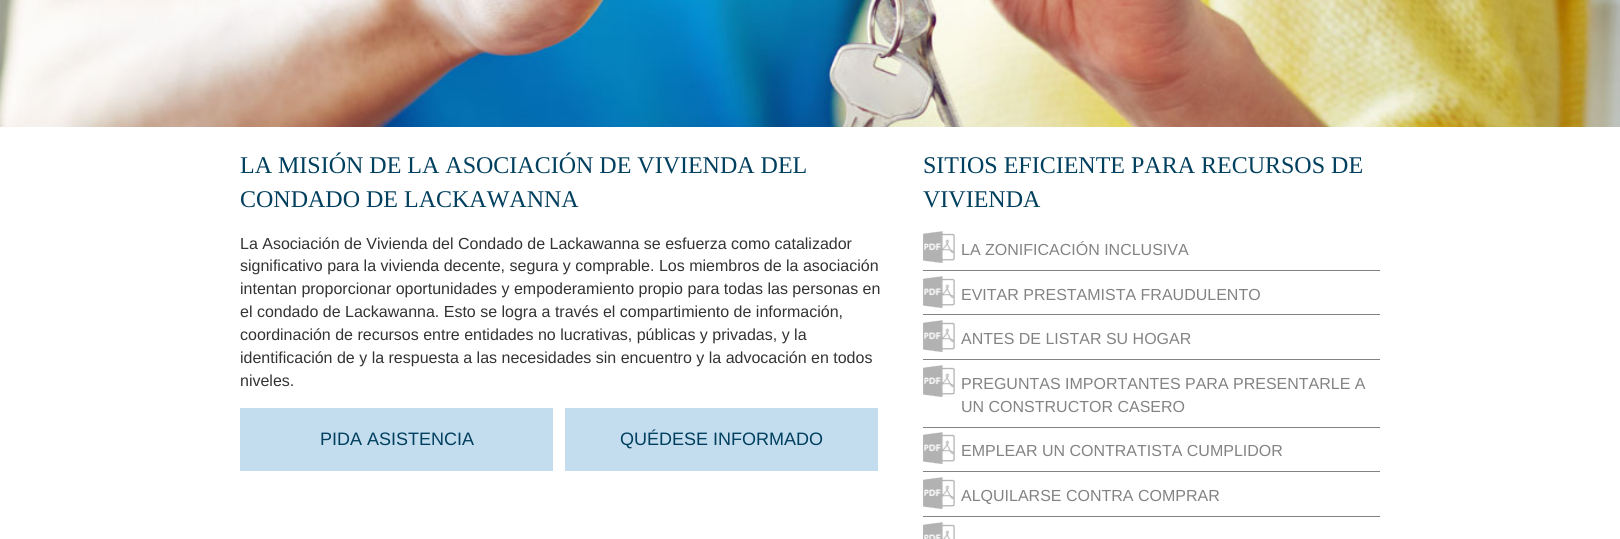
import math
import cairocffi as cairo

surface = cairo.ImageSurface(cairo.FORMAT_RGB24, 1620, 539)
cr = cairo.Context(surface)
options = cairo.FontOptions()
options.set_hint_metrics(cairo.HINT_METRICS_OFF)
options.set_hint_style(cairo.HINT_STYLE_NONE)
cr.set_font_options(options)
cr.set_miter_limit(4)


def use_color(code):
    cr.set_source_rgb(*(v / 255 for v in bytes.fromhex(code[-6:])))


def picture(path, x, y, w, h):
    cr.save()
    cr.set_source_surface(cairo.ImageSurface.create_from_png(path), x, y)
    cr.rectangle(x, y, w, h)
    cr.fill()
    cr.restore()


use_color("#ffffff")
cr.paint()
picture("img1.png", 0, 0, 1620, 127)
cr.select_font_face("Liberation Serif")
cr.set_font_size(24)
use_color("#003f5e")
cr.move_to(240, 173)
cr.show_text("LA MISIÓN DE LA ASOCIACIÓN DE VIVIENDA DEL")
cr.move_to(240, 207)
cr.show_text("CONDADO DE LACKAWANNA")
cr.select_font_face("Liberation Sans")
cr.set_font_size(16)
use_color("#333333")
cr.move_to(240, 249)
cr.show_text("La Asociación de Vivienda del Condado de Lackawanna se esfuerza como catalizador")
cr.move_to(240, 271)
cr.show_text("significativo para la vivienda decente, segura y comprable. Los miembros de la asociación")
cr.move_to(240, 294)
cr.show_text("intentan proporcionar oportunidades y empoderamiento propio para todas las personas en")
cr.move_to(240, 317)
cr.show_text("el condado de Lackawanna. Esto se logra a través el compartimiento de información,")
cr.move_to(240, 340)
cr.show_text("coordinación de recursos entre entidades no lucrativas, públicas y privadas, y la")
cr.move_to(240, 363)
cr.show_text("identificación de y la respuesta a las necesidades sin encuentro y la advocación en todos")
cr.move_to(240, 386)
cr.show_text("niveles.")
use_color("#c3dcee")
cr.rectangle(240, 408, 313, 63)
cr.fill()
cr.set_font_size(18)
use_color("#003f5e")
cr.move_to(320, 445)
cr.show_text("PIDA ASISTENCIA")
use_color("#c3dcee")
cr.rectangle(565, 408, 313, 63)
cr.fill()
use_color("#003f5e")
cr.move_to(620, 445)
cr.show_text("QUÉDESE INFORMADO")
cr.select_font_face("Liberation Serif")
cr.set_font_size(24)
cr.move_to(923, 173)
cr.show_text("SITIOS EFICIENTE PARA RECURSOS DE")
cr.move_to(923, 207)
cr.show_text("VIVIENDA")
picture("img2.png", 923, 231, 32, 32)
use_color("#838383")
cr.rectangle(923, 270, 457, 1)
cr.fill()
cr.select_font_face("Liberation Sans")
cr.set_font_size(16)
cr.move_to(961, 255)
cr.show_text("LA ZONIFICACIÓN INCLUSIVA")
picture("img2.png", 923, 276, 32, 32)
cr.rectangle(923, 314, 457, 1)
cr.fill()
cr.move_to(961, 300)
cr.show_text("EVITAR PRESTAMISTA FRAUDULENTO")
picture("img2.png", 923, 320, 32, 32)
cr.rectangle(923, 359, 457, 1)
cr.fill()
cr.move_to(961, 344)
cr.show_text("ANTES DE LISTAR SU HOGAR")
picture("img2.png", 923, 365, 32, 32)
cr.rectangle(923, 427, 457, 1)
cr.fill()
cr.move_to(961, 389)
cr.show_text("PREGUNTAS IMPORTANTES PARA PRESENTARLE A")
cr.move_to(961, 412)
cr.show_text("UN CONSTRUCTOR CASERO")
picture("img2.png", 923, 432, 32, 32)
cr.rectangle(923, 471, 457, 1)
cr.fill()
cr.move_to(961, 456)
cr.show_text("EMPLEAR UN CONTRATISTA CUMPLIDOR")
picture("img2.png", 923, 477, 32, 32)
cr.rectangle(923, 516, 457, 1)
cr.fill()
cr.move_to(961, 501)
cr.show_text("ALQUILARSE CONTRA COMPRAR")
picture("img3.png", 923, 522, 32, 17)
surface.write_to_png("result.png")
